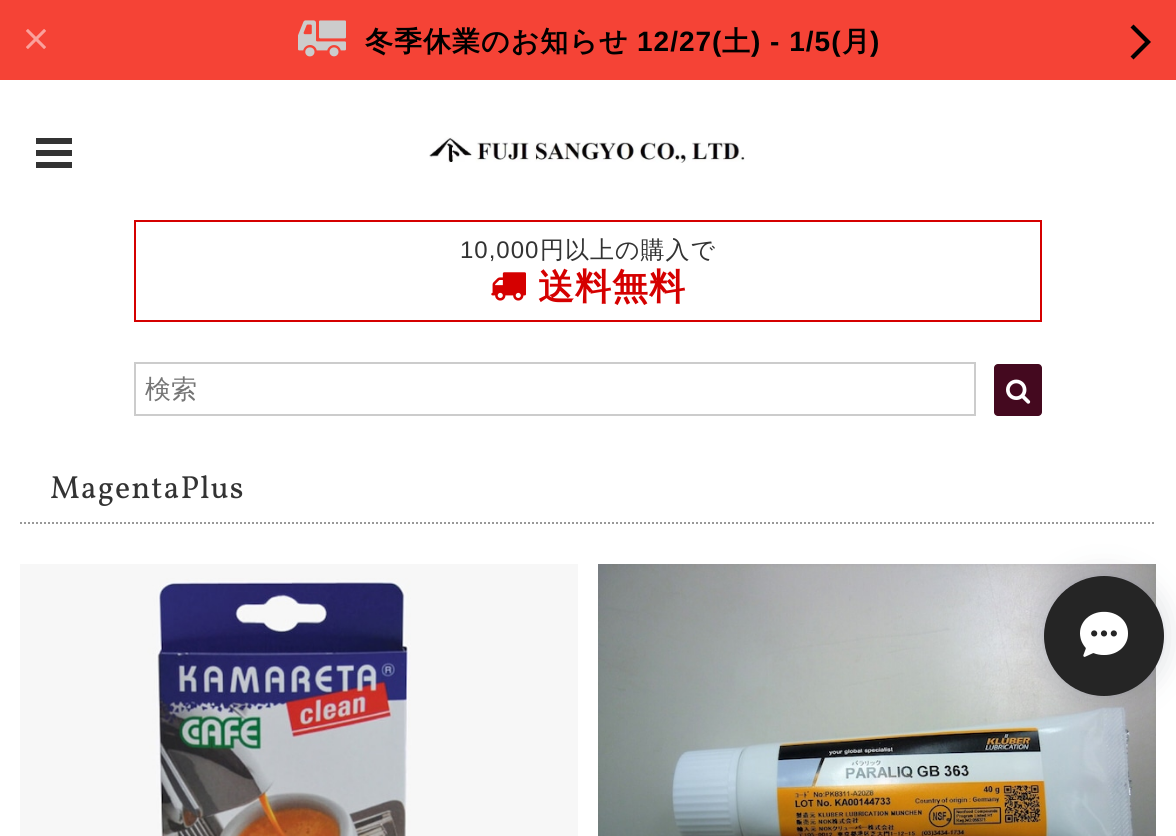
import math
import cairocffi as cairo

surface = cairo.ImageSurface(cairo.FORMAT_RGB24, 1176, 836)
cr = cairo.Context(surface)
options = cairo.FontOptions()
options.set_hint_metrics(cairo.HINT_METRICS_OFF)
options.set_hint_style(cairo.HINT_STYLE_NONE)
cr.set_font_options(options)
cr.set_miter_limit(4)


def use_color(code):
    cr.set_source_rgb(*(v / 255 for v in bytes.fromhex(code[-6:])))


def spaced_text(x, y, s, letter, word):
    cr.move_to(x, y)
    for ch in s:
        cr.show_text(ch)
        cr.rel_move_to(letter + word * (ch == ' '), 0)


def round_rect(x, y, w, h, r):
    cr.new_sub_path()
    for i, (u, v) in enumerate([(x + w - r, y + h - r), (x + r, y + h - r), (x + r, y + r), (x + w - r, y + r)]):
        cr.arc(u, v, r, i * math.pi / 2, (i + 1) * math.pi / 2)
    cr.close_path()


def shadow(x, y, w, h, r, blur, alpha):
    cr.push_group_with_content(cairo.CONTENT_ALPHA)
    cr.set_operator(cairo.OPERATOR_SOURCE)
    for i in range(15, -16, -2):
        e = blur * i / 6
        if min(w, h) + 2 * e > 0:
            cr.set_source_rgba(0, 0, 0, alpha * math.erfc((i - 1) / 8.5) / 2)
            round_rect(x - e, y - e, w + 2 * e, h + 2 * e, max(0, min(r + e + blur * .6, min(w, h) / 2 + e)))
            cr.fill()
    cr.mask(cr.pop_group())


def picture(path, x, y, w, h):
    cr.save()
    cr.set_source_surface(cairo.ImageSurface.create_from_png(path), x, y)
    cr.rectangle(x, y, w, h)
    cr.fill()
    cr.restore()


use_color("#ffffff")
cr.paint()
use_color("#f54336")
cr.rectangle(0, 0, 1176, 80)
cr.fill()
picture("img1.png", 26, 29, 20, 20)
picture("img2.png", 298, 20, 48, 37)
cr.select_font_face("WenQuanYi Zen Hei", cairo.FONT_SLANT_NORMAL, cairo.FONT_WEIGHT_BOLD)
cr.set_font_size(28)
use_color("#000000")
spaced_text(365, 51, "冬季休業のお知らせ", 1, 0)
cr.select_font_face("Liberation Sans", cairo.FONT_SLANT_NORMAL, cairo.FONT_WEIGHT_BOLD)
spaced_text(637, 51, "12/27(", 1, 0)
cr.select_font_face("WenQuanYi Zen Hei", cairo.FONT_SLANT_NORMAL, cairo.FONT_WEIGHT_BOLD)
spaced_text(722, 51, "土", 1, 0)
cr.select_font_face("Liberation Sans", cairo.FONT_SLANT_NORMAL, cairo.FONT_WEIGHT_BOLD)
spaced_text(751, 51, ") - 1/5(", 1, 0)
cr.select_font_face("WenQuanYi Zen Hei", cairo.FONT_SLANT_NORMAL, cairo.FONT_WEIGHT_BOLD)
spaced_text(842, 51, "月", 1, 0)
cr.select_font_face("Liberation Sans", cairo.FONT_SLANT_NORMAL, cairo.FONT_WEIGHT_BOLD)
spaced_text(870, 51, ")", 1, 0)
cr.new_path()
cr.move_to(1145, 42)
cr.line_to(1130.5, 27.5)
cr.line_to(1133.5, 24.5)
cr.line_to(1151, 42)
cr.line_to(1133.5, 59.5)
cr.line_to(1130.5, 56.5)
cr.close_path()
cr.fill()
use_color("#333333")
cr.rectangle(36, 150, 36, 6)
cr.fill()
cr.rectangle(36, 138, 36, 6)
cr.fill()
cr.rectangle(36, 162, 36, 6)
cr.fill()
picture("img3.png", 429, 137, 316, 26)
cr.rectangle(135, 221, 906, 100)
use_color("#d50000")
cr.stroke()
cr.select_font_face("Liberation Sans")
cr.set_font_size(24)
use_color("#333333")
spaced_text(460, 258, "10,000", 1, 0)
cr.select_font_face("WenQuanYi Zen Hei Medium")
spaced_text(540, 258, "円以上の購入で", 1, 0)
picture("img4.png", 491, 272, 35, 29)
cr.select_font_face("WenQuanYi Zen Hei", cairo.FONT_SLANT_NORMAL, cairo.FONT_WEIGHT_BOLD)
cr.set_font_size(36)
use_color("#d50000")
spaced_text(538, 299, "送料無料", 1, 0)
cr.rectangle(135, 363, 840, 52)
use_color("#cccccc")
cr.stroke()
cr.select_font_face("WenQuanYi Zen Hei Medium")
cr.set_font_size(26)
use_color("#757575")
cr.move_to(145, 398)
cr.show_text("検索")
use_color("#44091f")
round_rect(994, 364, 48, 52, 4)
cr.fill()
picture("img5.png", 1006, 379, 25, 25)
cr.new_path()
cr.move_to(20, 523)
cr.line_to(1156, 523)
use_color("#999999")
cr.set_dash([2, 2])
cr.stroke()
cr.select_font_face("Vollkorn")
cr.set_font_size(32)
use_color("#333333")
spaced_text(50, 498, "MagentaPlus", 1, 0)
picture("img6.png", 20, 564, 558, 272)
picture("img7.png", 598, 564, 558, 272)
use_color("#334258")
shadow(1044, 576, 120, 120, 60, 15, 0.2)
use_color("#252525")
cr.arc(1104, 636, 60, 0, 2 * math.pi)
cr.fill()
picture("img8.png", 1080, 611, 48, 46)
surface.write_to_png("result.png")
